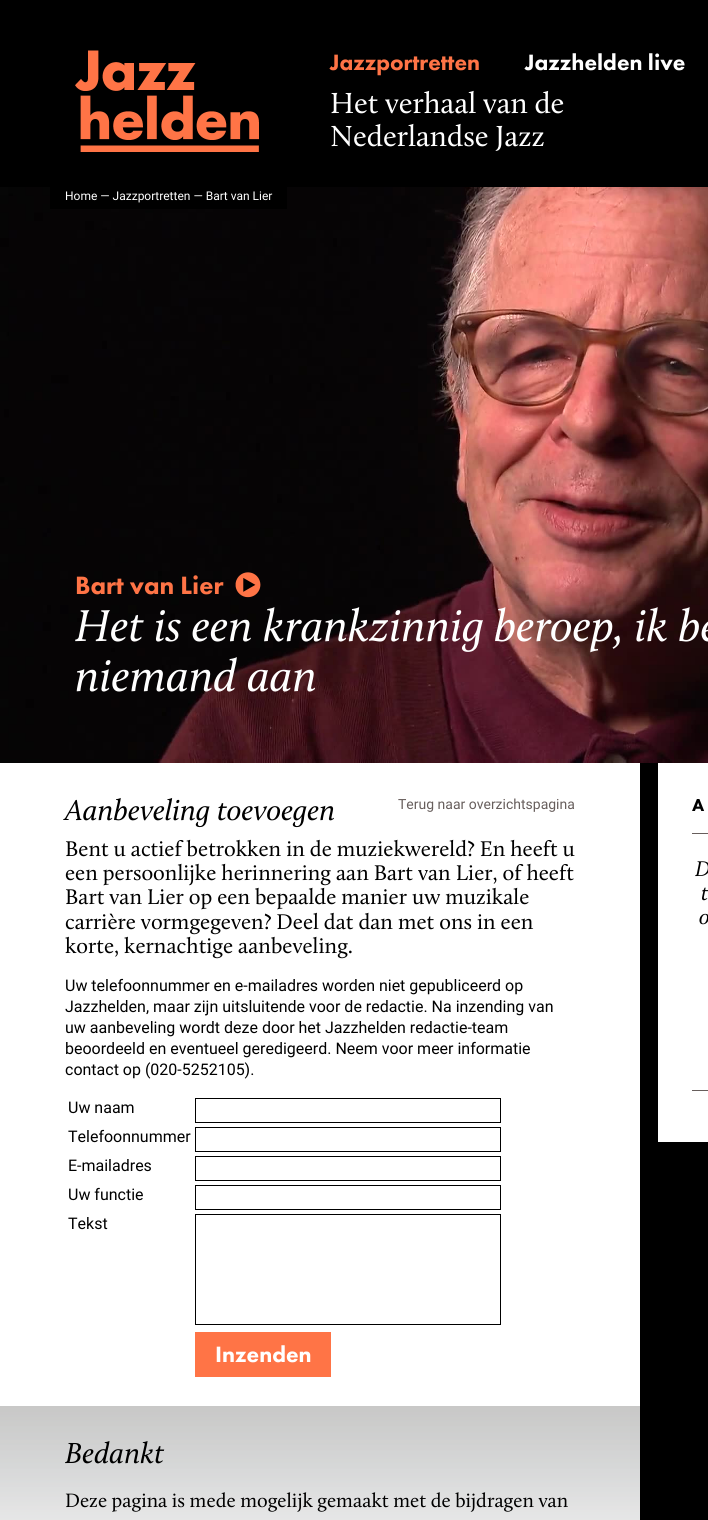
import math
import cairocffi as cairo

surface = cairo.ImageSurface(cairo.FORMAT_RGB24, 708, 1520)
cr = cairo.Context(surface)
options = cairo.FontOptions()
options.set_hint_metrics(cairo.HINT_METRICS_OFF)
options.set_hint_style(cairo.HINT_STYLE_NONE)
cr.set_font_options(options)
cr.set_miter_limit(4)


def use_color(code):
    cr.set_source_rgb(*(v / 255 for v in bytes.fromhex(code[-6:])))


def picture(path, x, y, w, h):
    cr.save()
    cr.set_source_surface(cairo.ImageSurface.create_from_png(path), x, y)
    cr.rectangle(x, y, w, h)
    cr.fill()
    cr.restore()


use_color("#000000")
cr.paint()
picture("img1.png", 75, 50, 184, 102)
cr.select_font_face("Futura PT Black")
cr.set_font_size(23)
use_color("#ff7446")
cr.move_to(330, 70)
cr.show_text("Jazzportretten")
use_color("#ffffff")
cr.move_to(525, 70)
cr.show_text("Jazzhelden live")
cr.select_font_face("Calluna")
cr.set_font_size(30)
cr.move_to(330, 113)
cr.show_text("Het verhaal van de")
cr.move_to(330, 146)
cr.show_text("Nederlandse Jazz")
picture("img2.png", 0, 187, 708, 576)
use_color("#000000")
cr.rectangle(50, 187, 237, 22)
cr.fill()
cr.select_font_face("Roboto")
cr.set_font_size(12)
use_color("#ffffff")
cr.move_to(65, 200)
cr.show_text("Home — Jazzportretten — Bart van Lier")
cr.select_font_face("Futura PT Black")
cr.set_font_size(26)
use_color("#ff7446")
cr.move_to(75, 594)
cr.show_text("Bart van Lier")
picture("img3.png", 235, 572, 26, 26)
cr.select_font_face("Calluna", cairo.FONT_SLANT_ITALIC)
cr.set_font_size(46)
use_color("#ffffff")
cr.move_to(75, 641)
cr.show_text("Het is een krankzinnig beroep, ik be")
cr.move_to(75, 691)
cr.show_text("niemand aan")
cr.rectangle(0, 763, 640, 643)
cr.fill()
cr.set_font_size(30)
use_color("#000000")
cr.move_to(65, 820)
cr.show_text("Aanbeveling toevoegen")
cr.select_font_face("Roboto")
cr.set_font_size(14)
use_color("#675e5c")
cr.move_to(398, 809)
cr.show_text("Terug naar overzichtspagina")
cr.select_font_face("Calluna")
cr.set_font_size(22)
use_color("#000000")
cr.move_to(65, 856)
cr.show_text("Bent u actief betrokken in de muziekwereld? En heeft u")
cr.move_to(65, 880)
cr.show_text("een persoonlijke herinnering aan Bart van Lier, of heeft")
cr.move_to(65, 904)
cr.show_text("Bart van Lier op een bepaalde manier uw muzikale")
cr.move_to(65, 929)
cr.show_text("carrière vormgegeven? Deel dat dan met ons in een")
cr.move_to(65, 953)
cr.show_text("korte, kernachtige aanbeveling.")
cr.select_font_face("Roboto")
cr.set_font_size(16)
cr.move_to(65, 991)
cr.show_text("Uw telefoonnummer en e-mailadres worden niet gepubliceerd op")
cr.move_to(65, 1012)
cr.show_text("Jazzhelden, maar zijn uitsluitende voor de redactie. Na inzending van")
cr.move_to(65, 1033)
cr.show_text("uw aanbeveling wordt deze door het Jazzhelden redactie-team")
cr.move_to(65, 1054)
cr.show_text("beoordeeld en eventueel geredigeerd. Neem voor meer informatie")
cr.move_to(65, 1075)
cr.show_text("contact op (020-5252105).")
cr.move_to(68, 1113)
cr.show_text("Uw naam")
cr.rectangle(195.5, 1098.5, 305, 24)
cr.set_line_width(1)
cr.stroke()
cr.move_to(68, 1142)
cr.show_text("Telefoonnummer")
cr.rectangle(195.5, 1127.5, 305, 24)
cr.stroke()
cr.move_to(68, 1171)
cr.show_text("E-mailadres")
cr.rectangle(195.5, 1156.5, 305, 24)
cr.stroke()
cr.move_to(68, 1200)
cr.show_text("Uw functie")
cr.rectangle(195.5, 1185.5, 305, 24)
cr.stroke()
cr.move_to(68, 1229)
cr.show_text("Tekst")
cr.rectangle(195.5, 1214.5, 305, 110)
cr.stroke()
use_color("#ff7446")
cr.rectangle(195, 1332, 136, 45)
cr.fill()
cr.select_font_face("Futura PT Black")
cr.set_font_size(23)
use_color("#ffffff")
cr.move_to(215, 1362)
cr.show_text("Inzenden")
picture("img4.png", 0, 1406, 640, 114)
cr.select_font_face("Calluna", cairo.FONT_SLANT_ITALIC)
cr.set_font_size(30)
use_color("#000000")
cr.move_to(65, 1463)
cr.show_text("Bedankt")
cr.select_font_face("Calluna")
cr.set_font_size(20)
cr.move_to(65, 1507)
cr.show_text("Deze pagina is mede mogelijk gemaakt met de bijdragen van")
use_color("#ffffff")
cr.rectangle(658, 763, 50, 379)
cr.fill()
cr.select_font_face("Futura PT Black")
cr.set_font_size(18)
use_color("#000000")
cr.move_to(692, 811)
cr.show_text("A")
use_color("#675e5c")
cr.rectangle(692, 833, 16, 1)
cr.fill()
cr.select_font_face("Calluna", cairo.FONT_SLANT_ITALIC)
cr.set_font_size(22)
use_color("#000000")
cr.move_to(695, 876)
cr.show_text("D")
cr.move_to(701, 900)
cr.show_text("t")
cr.move_to(699, 924)
cr.show_text("o")
use_color("#675e5c")
cr.rectangle(692, 1090, 16, 1)
cr.fill()
surface.write_to_png("result.png")
